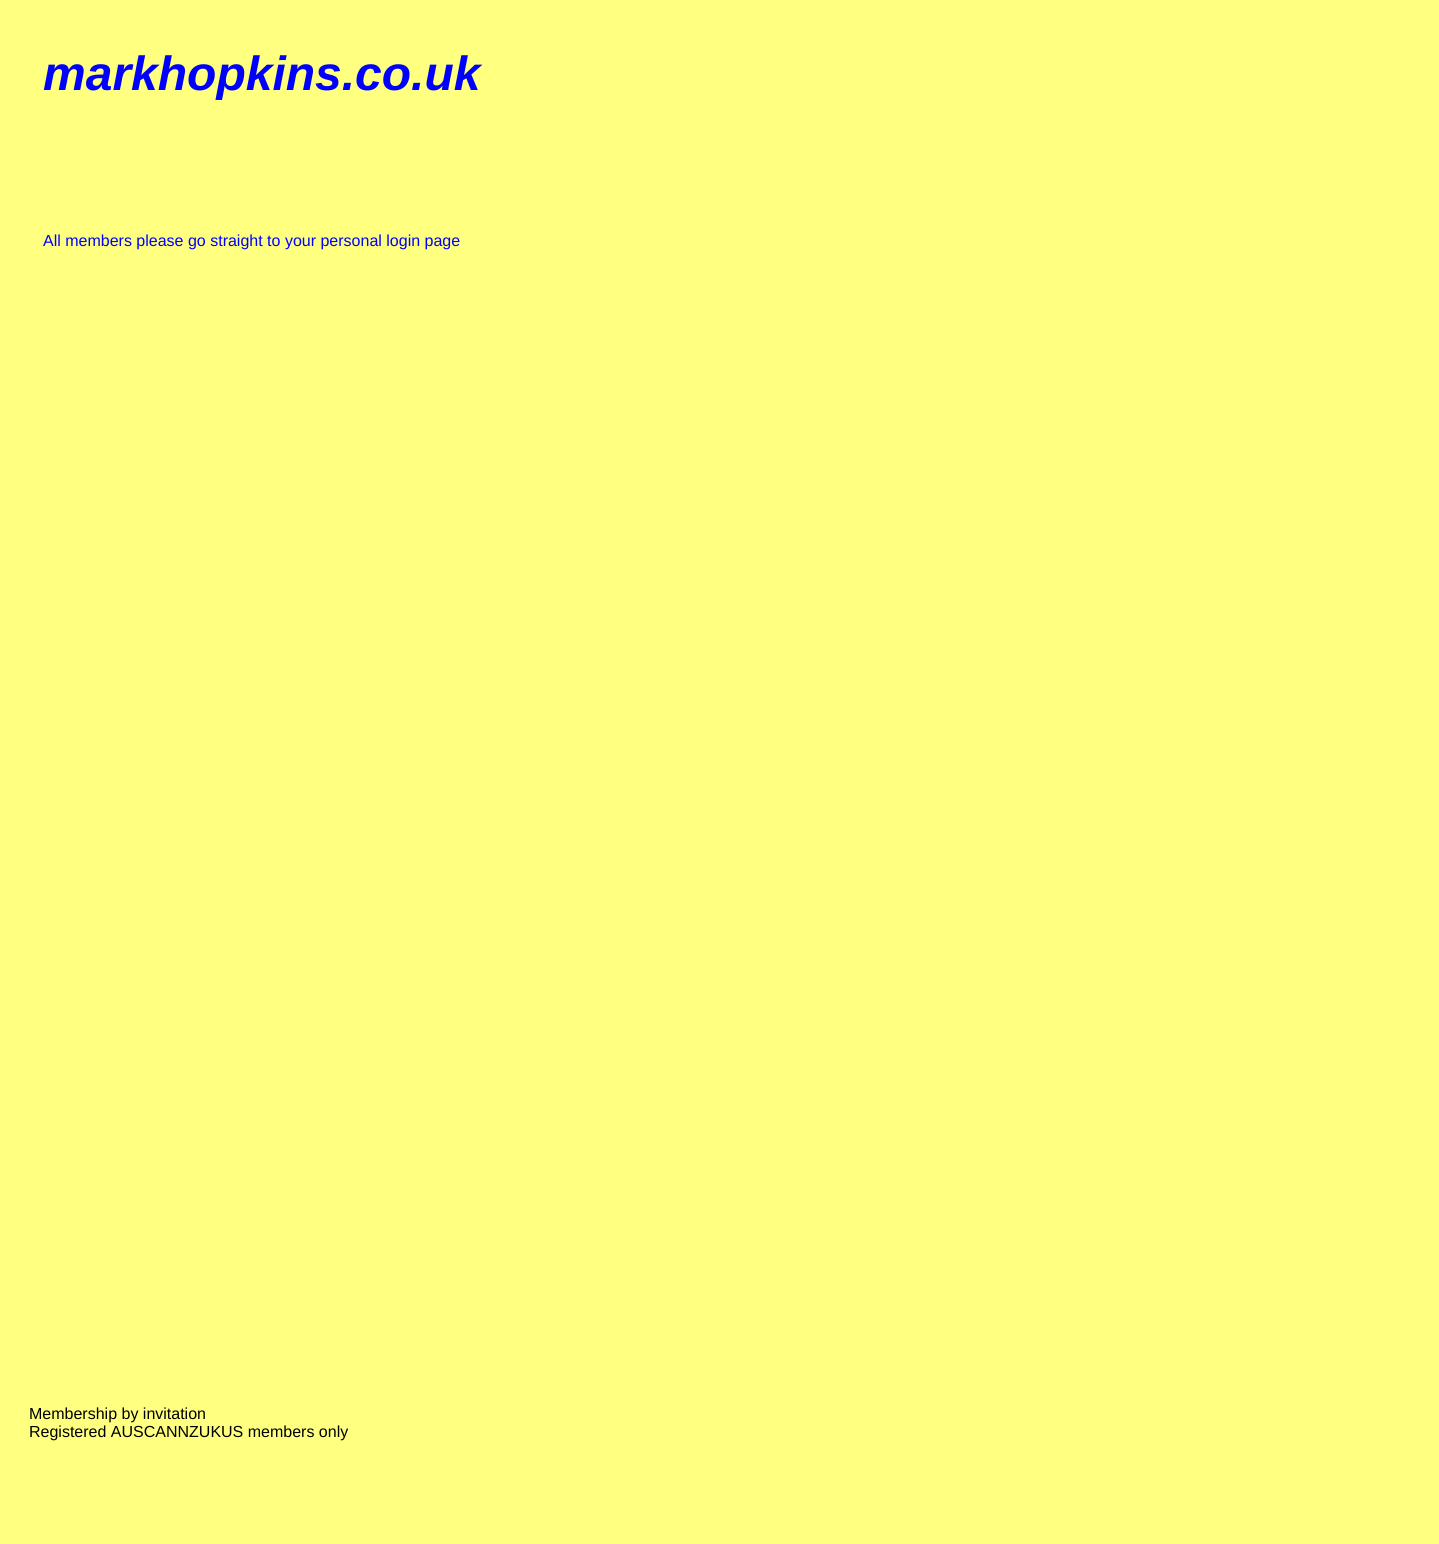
import math
import cairocffi as cairo

surface = cairo.ImageSurface(cairo.FORMAT_RGB24, 1439, 1544)
cr = cairo.Context(surface)
options = cairo.FontOptions()
options.set_hint_metrics(cairo.HINT_METRICS_OFF)
options.set_hint_style(cairo.HINT_STYLE_NONE)
cr.set_font_options(options)
cr.set_miter_limit(4)


def use_color(code):
    cr.set_source_rgb(*(v / 255 for v in bytes.fromhex(code[-6:])))


use_color("#ffff80")
cr.paint()
cr.select_font_face("Liberation Sans", cairo.FONT_SLANT_ITALIC, cairo.FONT_WEIGHT_BOLD)
cr.set_font_size(48)
use_color("#0000ff")
cr.move_to(43, 90)
cr.show_text("markhopkins.co.uk")
cr.select_font_face("Liberation Sans")
cr.set_font_size(16)
cr.move_to(43, 246)
cr.show_text("All members please go straight to your personal login page")
use_color("#000000")
cr.move_to(29, 1419)
cr.show_text("Membership by invitation")
cr.move_to(29, 1437)
cr.show_text("Registered AUSCANNZUKUS members only")
surface.write_to_png("result.png")
